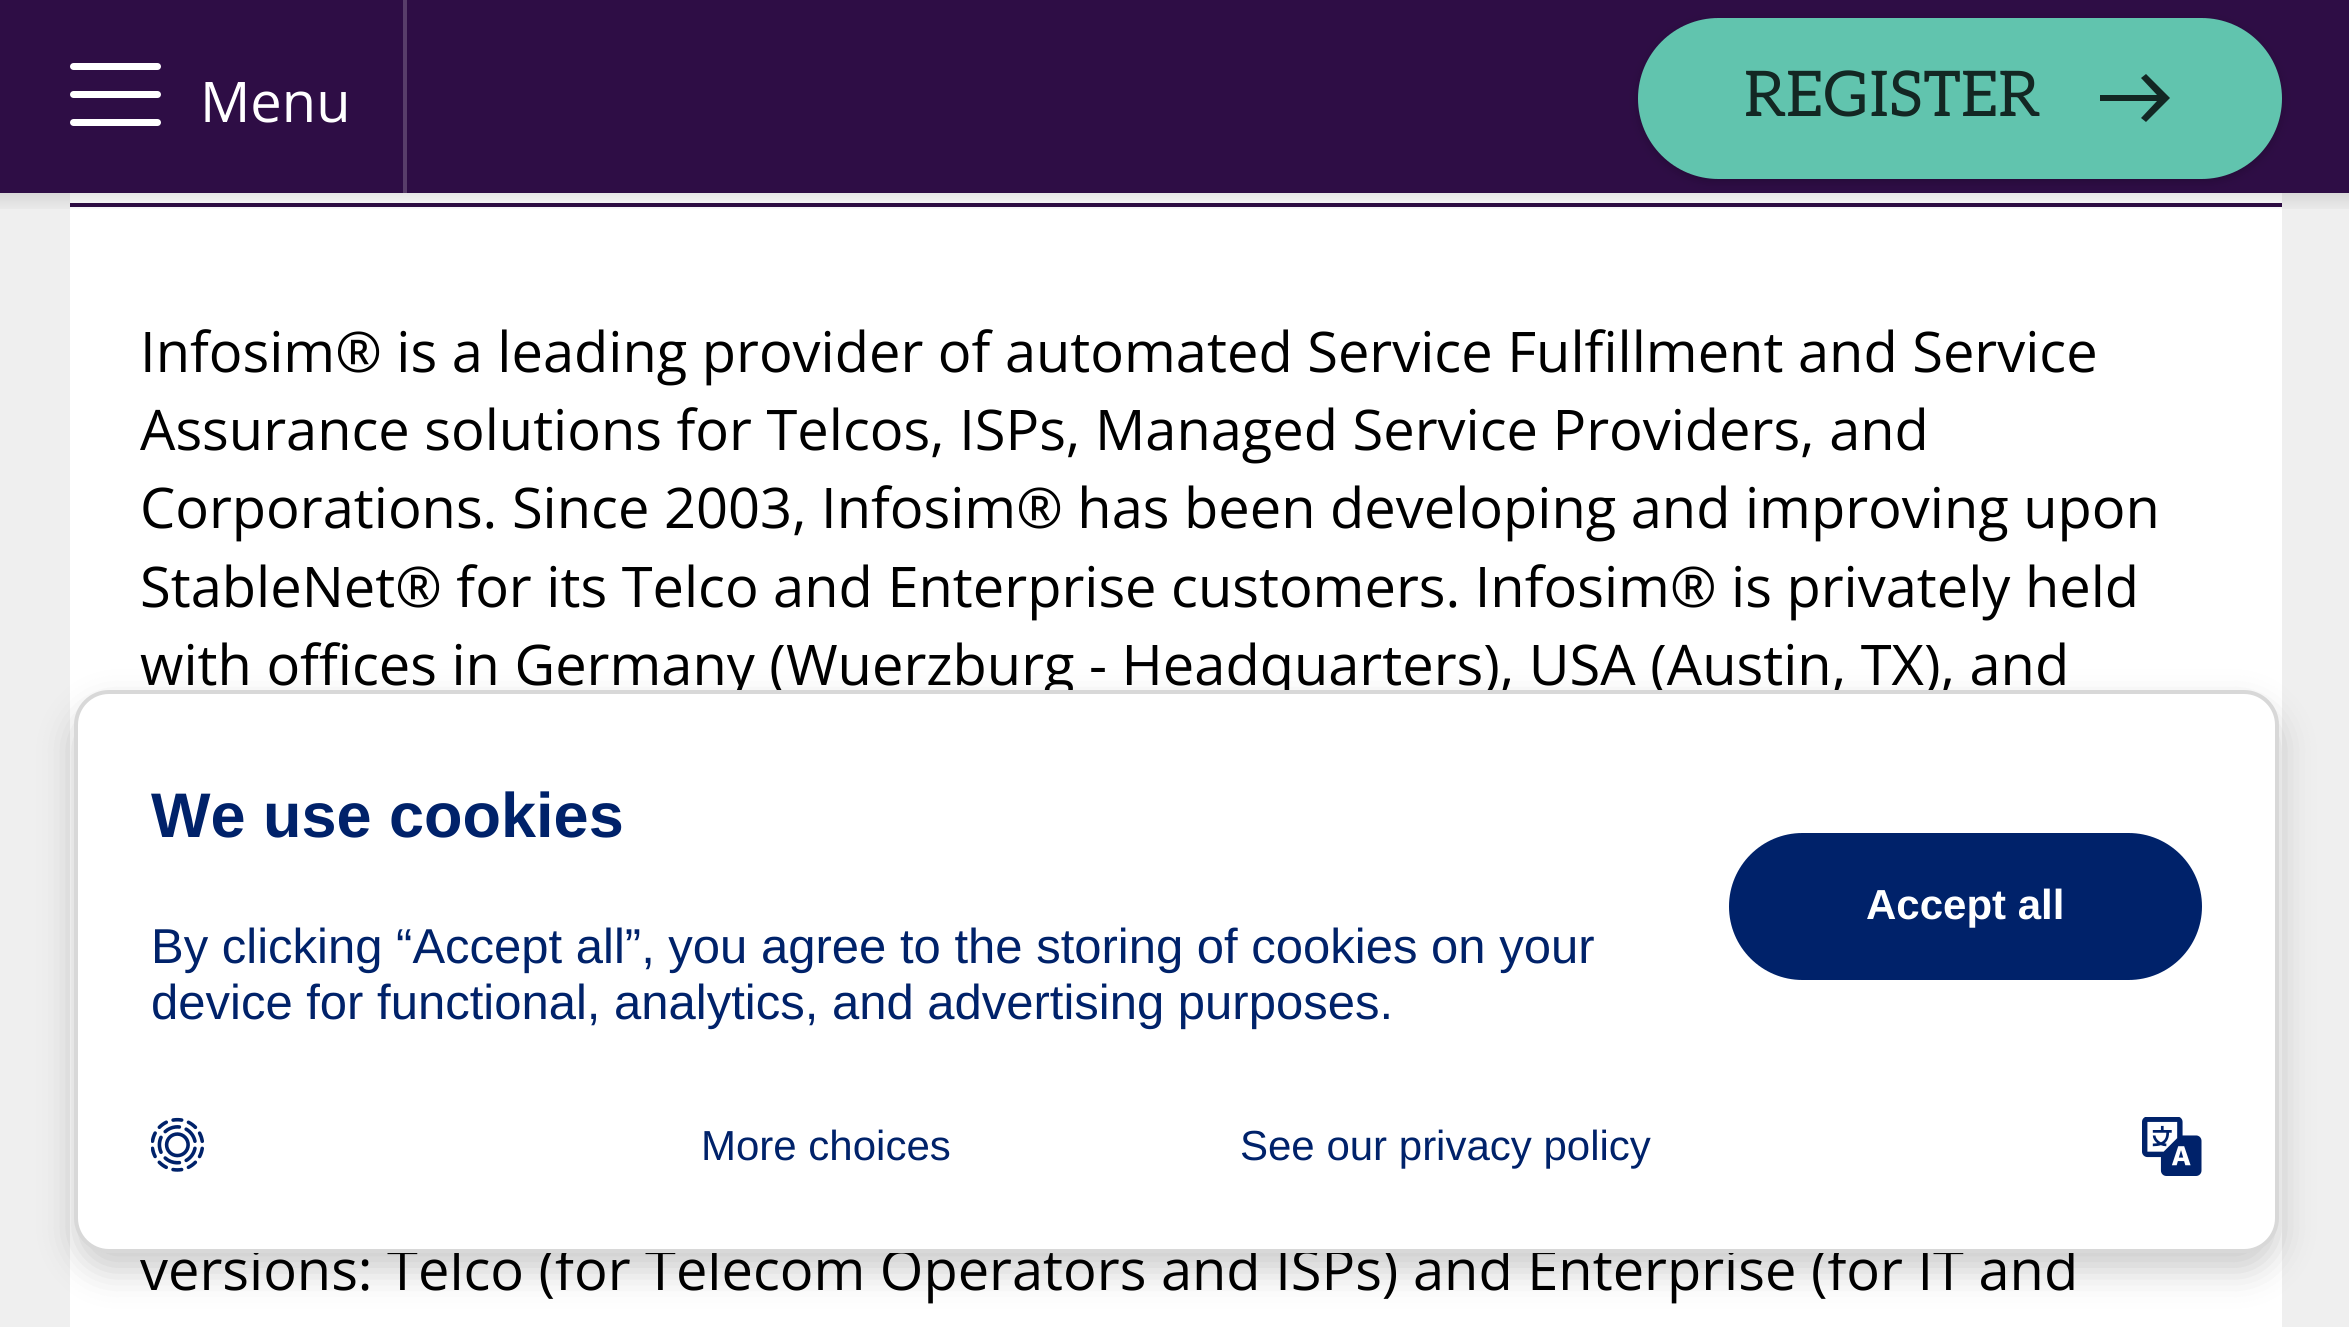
import math
import cairocffi as cairo

surface = cairo.ImageSurface(cairo.FORMAT_RGB24, 2349, 1327)
cr = cairo.Context(surface)
options = cairo.FontOptions()
options.set_hint_metrics(cairo.HINT_METRICS_OFF)
options.set_hint_style(cairo.HINT_STYLE_NONE)
cr.set_font_options(options)
cr.set_miter_limit(4)


def use_color(code):
    cr.set_source_rgb(*(v / 255 for v in bytes.fromhex(code[-6:])))


def round_rect(x, y, w, h, r):
    cr.new_sub_path()
    for i, (u, v) in enumerate([(x + w - r, y + h - r), (x + r, y + h - r), (x + r, y + r), (x + w - r, y + r)]):
        cr.arc(u, v, r, i * math.pi / 2, (i + 1) * math.pi / 2)
    cr.close_path()


def shadow(x, y, w, h, r, blur, alpha):
    cr.push_group_with_content(cairo.CONTENT_ALPHA)
    cr.set_operator(cairo.OPERATOR_SOURCE)
    for i in range(15, -16, -2):
        e = blur * i / 6
        if min(w, h) + 2 * e > 0:
            cr.set_source_rgba(0, 0, 0, alpha * math.erfc((i - 1) / 8.5) / 2)
            round_rect(x - e, y - e, w + 2 * e, h + 2 * e, max(0, min(r + e + blur * .6, min(w, h) / 2 + e)))
            cr.fill()
    cr.mask(cr.pop_group())


def picture(path, x, y, w, h):
    cr.save()
    cr.set_source_surface(cairo.ImageSurface.create_from_png(path), x, y)
    cr.rectangle(x, y, w, h)
    cr.fill()
    cr.restore()


use_color("#efefef")
cr.paint()
use_color("#2e0d45")
cr.rectangle(0, 0, 2349, 193)
cr.fill()
use_color("#ffffff")
round_rect(70, 63, 91, 7, 3.5)
cr.fill()
round_rect(70, 91, 91, 7, 3.5)
cr.fill()
round_rect(70, 119, 91, 7, 3.5)
cr.fill()
cr.select_font_face("Open Sans")
cr.set_font_size(56)
cr.move_to(200, 122)
cr.show_text("Menu")
use_color("#583d6a")
cr.rectangle(403, 0, 4, 193)
cr.fill()
use_color("#ffffff")
cr.rectangle(70, 193, 2212, 1134)
cr.fill()
use_color("#000000")
shadow(1638, 21, 644, 161, 80.5, 5, 0.2)
use_color("#61c4ae")
round_rect(1638, 18, 644, 161, 80.5)
cr.fill()
cr.select_font_face("Aleo")
cr.set_font_size(63)
use_color("#132723")
cr.move_to(1744, 116)
cr.show_text("REGISTER")
cr.new_path()
cr.move_to(2146, 74)
cr.line_to(2141, 78)
cr.line_to(2157, 95)
cr.line_to(2100, 95)
cr.line_to(2100, 101)
cr.line_to(2157, 101)
cr.line_to(2141, 118)
cr.line_to(2146, 122)
cr.line_to(2170, 98)
cr.close_path()
cr.fill()
use_color("#2e0d45")
cr.rectangle(70, 203, 2212, 4)
cr.fill()
gradient = cairo.LinearGradient(1176, 192, 1176, 214)
gradient.add_color_stop_rgba(0, 0, 0, 0, 0.1)
gradient.add_color_stop_rgba(1, 0, 0, 0, 0)
cr.set_source(gradient)
cr.rectangle(0, 193, 2349, 16)
cr.fill()
cr.select_font_face("Open Sans")
cr.set_font_size(56)
use_color("#000000")
cr.move_to(140, 372)
cr.show_text("Infosim® is a leading provider of automated Service Fulfillment and Service")
cr.move_to(140, 450)
cr.show_text("Assurance solutions for Telcos, ISPs, Managed Service Providers, and")
cr.move_to(140, 528)
cr.show_text("Corporations. Since 2003, Infosim® has been developing and improving upon")
cr.move_to(140, 607)
cr.show_text("StableNet® for its Telco and Enterprise customers. Infosim® is privately held")
cr.move_to(140, 685)
cr.show_text("with offices in Germany (Wuerzburg - Headquarters), USA (Austin, TX), and")
cr.move_to(140, 1290)
cr.show_text("versions: Telco (for Telecom Operators and ISPs) and Enterprise (for IT and")
use_color("#000000")
shadow(74, 707, 2205, 564, 35, 17.5, 0.2)
use_color("#ffffff")
round_rect(76, 692, 2201, 559, 33)
cr.fill_preserve()
use_color("#d8d8d8")
cr.set_line_width(4)
cr.stroke()
cr.select_font_face("Liberation Sans", cairo.FONT_SLANT_NORMAL, cairo.FONT_WEIGHT_BOLD)
cr.set_font_size(63)
use_color("#00226a")
cr.move_to(151, 837)
cr.show_text("We use cookies")
cr.select_font_face("Liberation Sans")
cr.set_font_size(49)
cr.move_to(151, 963)
cr.show_text("By clicking “Accept all”, you agree to the storing of cookies on your")
cr.move_to(151, 1019)
cr.show_text("device for functional, analytics, and advertising purposes.")
round_rect(1729, 833, 473, 147, 73.5)
cr.fill()
cr.select_font_face("Liberation Sans", cairo.FONT_SLANT_NORMAL, cairo.FONT_WEIGHT_BOLD)
cr.set_font_size(42)
use_color("#ffffff")
cr.move_to(1866, 919)
cr.show_text("Accept all")
picture("img1.png", 151, 1117, 53, 55)
cr.select_font_face("Liberation Sans")
use_color("#00226a")
cr.move_to(701, 1160)
cr.show_text("More choices")
cr.move_to(1240, 1160)
cr.show_text("See our privacy policy")
picture("img2.png", 2142, 1117, 60, 59)
surface.write_to_png("result.png")
